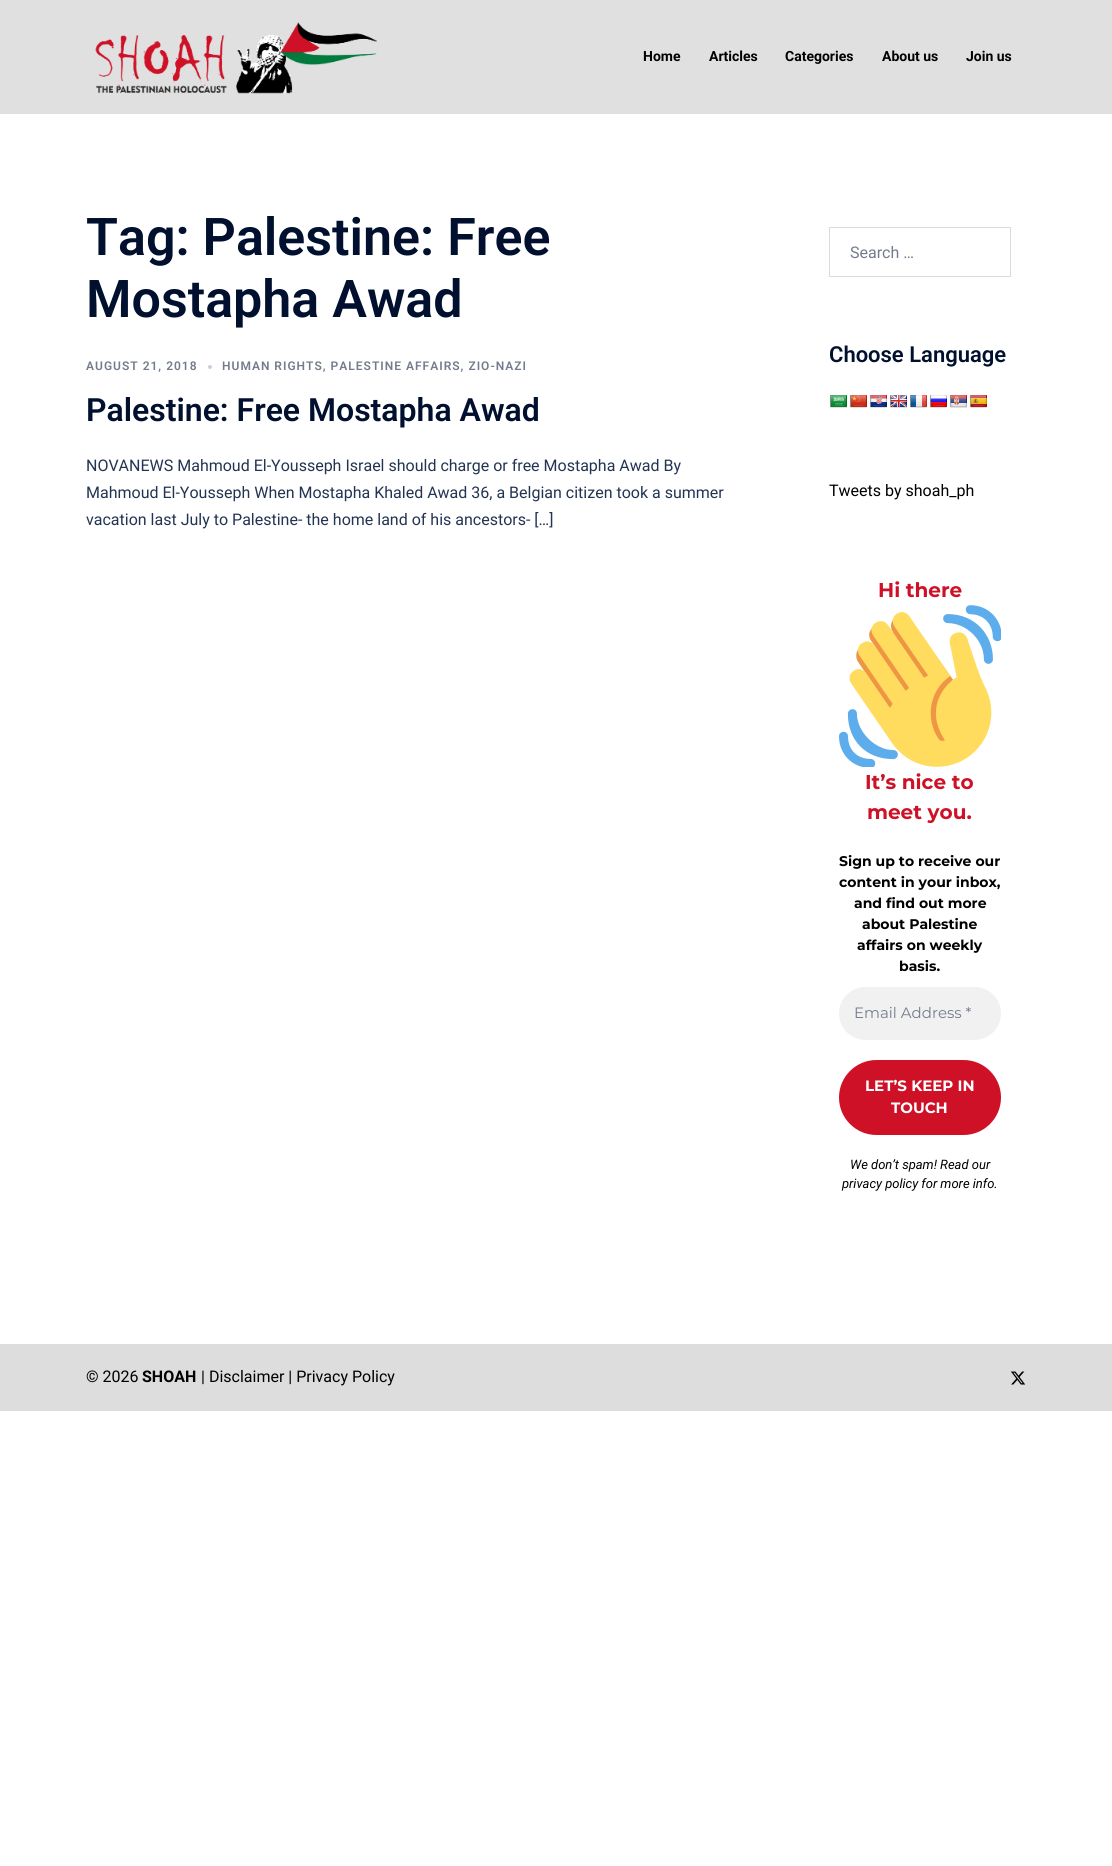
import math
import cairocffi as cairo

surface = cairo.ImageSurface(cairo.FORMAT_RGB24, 1112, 1866)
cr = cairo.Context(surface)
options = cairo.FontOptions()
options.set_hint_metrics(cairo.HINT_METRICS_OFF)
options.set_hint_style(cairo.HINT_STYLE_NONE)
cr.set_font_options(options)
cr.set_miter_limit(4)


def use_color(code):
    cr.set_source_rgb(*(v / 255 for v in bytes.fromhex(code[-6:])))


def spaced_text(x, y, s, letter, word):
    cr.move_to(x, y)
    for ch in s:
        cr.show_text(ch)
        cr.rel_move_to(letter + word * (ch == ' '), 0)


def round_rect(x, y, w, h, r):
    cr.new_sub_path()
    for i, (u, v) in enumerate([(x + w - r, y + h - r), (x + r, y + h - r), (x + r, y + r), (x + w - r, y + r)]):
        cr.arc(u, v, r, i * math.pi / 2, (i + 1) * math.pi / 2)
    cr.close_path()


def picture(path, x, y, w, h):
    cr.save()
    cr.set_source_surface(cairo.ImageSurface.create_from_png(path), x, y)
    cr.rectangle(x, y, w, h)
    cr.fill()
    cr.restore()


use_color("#ffffff")
cr.paint()
use_color("#e0e0e0")
cr.rectangle(0, 0, 1112, 114)
cr.fill()
picture("img1.png", 95, 22, 282, 72)
cr.select_font_face("Roboto", cairo.FONT_SLANT_NORMAL, cairo.FONT_WEIGHT_BOLD)
cr.set_font_size(14)
use_color("#000000")
cr.move_to(643, 61)
cr.show_text("Home")
cr.move_to(709, 61)
cr.show_text("Articles")
cr.move_to(785, 61)
cr.show_text("Categories")
cr.move_to(882, 61)
cr.show_text("About us")
cr.move_to(966, 61)
cr.show_text("Join us")
cr.select_font_face("Roboto SemiBold")
cr.set_font_size(52)
use_color("#00102e")
cr.move_to(86, 255)
cr.show_text("Tag: Palestine: Free")
cr.move_to(86, 317)
cr.show_text("Mostapha Awad")
cr.set_font_size(12)
use_color("#737c8c")
spaced_text(86, 370, "AUGUST 21, 2018", 1, 0)
use_color("#cccfd5")
cr.new_path()
cr.arc(210, 367, 2, 0, 2 * math.pi)
cr.fill()
use_color("#737c8c")
spaced_text(222, 370, "HUMAN RIGHTS, PALESTINE AFFAIRS, ZIO-NAZI", 1, 0)
cr.set_font_size(32)
use_color("#00102e")
cr.move_to(86, 421)
cr.show_text("Palestine: Free Mostapha Awad")
cr.select_font_face("Roboto")
cr.set_font_size(16)
use_color("#233452")
cr.move_to(86, 471)
cr.show_text("NOVANEWS Mahmoud El-Yousseph Israel should charge or free Mostapha Awad By")
cr.move_to(86, 498)
cr.show_text("Mahmoud El-Yousseph When Mostapha Khaled Awad 36, a Belgian citizen took a summer")
cr.move_to(86, 525)
cr.show_text("vacation last July to Palestine- the home land of his ancestors- […]")
cr.rectangle(829.5, 227.5, 181, 49)
use_color("#dbdbdb")
cr.set_line_width(1)
cr.stroke()
use_color("#737c8c")
cr.move_to(850, 258)
cr.show_text("Search …")
cr.select_font_face("Roboto SemiBold")
cr.set_font_size(22)
use_color("#00102e")
cr.move_to(829, 362)
cr.show_text("Choose Language")
picture("img2.png", 830, 395, 17, 13)
picture("img3.png", 850, 395, 17, 13)
picture("img4.png", 870, 395, 17, 13)
picture("img5.png", 890, 395, 17, 13)
picture("img6.png", 910, 395, 17, 13)
picture("img7.png", 930, 395, 17, 13)
picture("img8.png", 950, 395, 17, 13)
picture("img9.png", 970, 395, 17, 13)
cr.select_font_face("Roboto")
cr.set_font_size(16)
use_color("#000000")
cr.move_to(829, 496)
cr.show_text("Tweets by shoah_ph")
cr.select_font_face("Montserrat", cairo.FONT_SLANT_NORMAL, cairo.FONT_WEIGHT_BOLD)
cr.set_font_size(20)
use_color("#ce1126")
cr.move_to(878, 597)
cr.show_text("Hi there")
picture("img10.png", 839, 605, 162, 162)
cr.move_to(865, 789)
cr.show_text("It’s nice to")
cr.move_to(867, 819)
cr.show_text("meet you.")
cr.set_font_size(14)
use_color("#000000")
cr.move_to(839, 866)
cr.show_text("Sign up to receive our")
cr.move_to(839, 887)
cr.show_text("content in your inbox,")
cr.move_to(854, 908)
cr.show_text("and find out more")
cr.move_to(862, 929)
cr.show_text("about Palestine")
cr.move_to(857, 950)
cr.show_text("affairs on weekly")
cr.move_to(899, 971)
cr.show_text("basis.")
use_color("#f1f1f1")
round_rect(839, 987, 162, 53, 26.5)
cr.fill()
cr.select_font_face("Montserrat")
cr.set_font_size(15)
use_color("#737c8c")
cr.move_to(854, 1018)
cr.show_text("Email Address *")
use_color("#ce1126")
round_rect(839, 1060, 162, 75, 37.5)
cr.fill()
cr.select_font_face("Montserrat", cairo.FONT_SLANT_NORMAL, cairo.FONT_WEIGHT_BOLD)
use_color("#ffffff")
cr.move_to(865, 1091)
cr.show_text("LET’S KEEP IN")
cr.move_to(891, 1113)
cr.show_text("TOUCH")
cr.select_font_face("Roboto", cairo.FONT_SLANT_ITALIC)
cr.set_font_size(13)
use_color("#000000")
cr.move_to(850, 1169)
cr.show_text("We don’t spam! Read our")
cr.move_to(842, 1188)
cr.show_text("privacy policy for more info.")
use_color("#dddddd")
cr.rectangle(0, 1344, 1112, 67)
cr.fill()
cr.select_font_face("Roboto")
cr.set_font_size(16)
use_color("#000000")
cr.move_to(86, 1382)
cr.show_text("© 2026")
cr.select_font_face("Roboto", cairo.FONT_SLANT_NORMAL, cairo.FONT_WEIGHT_BOLD)
cr.move_to(142, 1382)
cr.show_text("SHOAH")
cr.select_font_face("Roboto")
cr.move_to(201, 1382)
cr.show_text("| Disclaimer | Privacy Policy")
picture("img11.png", 1011, 1371, 15, 14)
surface.write_to_png("result.png")
